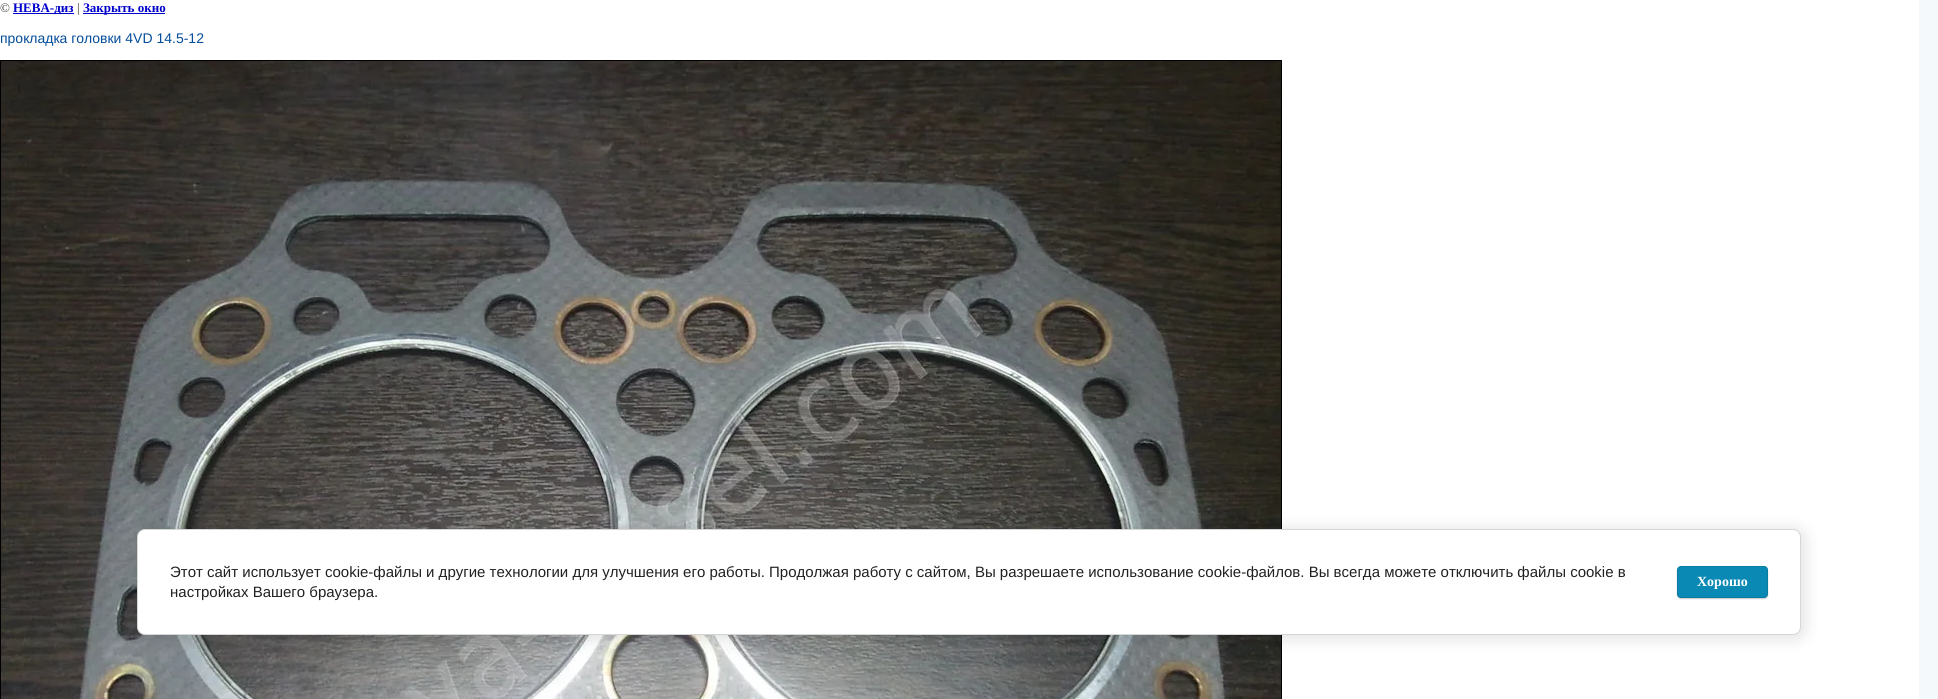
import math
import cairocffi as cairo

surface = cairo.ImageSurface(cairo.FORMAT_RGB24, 1938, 699)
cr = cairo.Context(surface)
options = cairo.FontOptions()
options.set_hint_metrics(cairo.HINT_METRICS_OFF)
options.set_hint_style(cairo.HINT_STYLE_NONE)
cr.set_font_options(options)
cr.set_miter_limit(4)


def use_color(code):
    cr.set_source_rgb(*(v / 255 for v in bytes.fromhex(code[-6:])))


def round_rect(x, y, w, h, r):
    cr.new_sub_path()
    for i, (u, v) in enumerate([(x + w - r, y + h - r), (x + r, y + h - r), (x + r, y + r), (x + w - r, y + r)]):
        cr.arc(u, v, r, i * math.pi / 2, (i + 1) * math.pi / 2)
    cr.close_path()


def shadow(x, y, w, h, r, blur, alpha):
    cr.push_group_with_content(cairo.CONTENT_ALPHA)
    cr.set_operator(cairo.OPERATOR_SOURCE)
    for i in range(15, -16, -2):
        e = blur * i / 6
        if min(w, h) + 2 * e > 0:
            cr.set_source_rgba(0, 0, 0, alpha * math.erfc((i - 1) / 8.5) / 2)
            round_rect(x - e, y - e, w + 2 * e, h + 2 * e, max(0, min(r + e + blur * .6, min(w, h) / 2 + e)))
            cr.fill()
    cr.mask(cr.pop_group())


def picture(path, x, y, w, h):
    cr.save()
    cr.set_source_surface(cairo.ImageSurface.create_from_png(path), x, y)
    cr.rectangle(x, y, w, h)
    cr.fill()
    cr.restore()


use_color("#ffffff")
cr.paint()
use_color("#f4fafb")
cr.rectangle(1919, 0, 19, 699)
cr.fill()
cr.select_font_face("Liberation Serif")
cr.set_font_size(13)
use_color("#393939")
cr.move_to(0, 12)
cr.show_text("©")
use_color("#0000cc")
cr.rectangle(13, 13, 61, 1)
cr.fill()
cr.select_font_face("Liberation Serif", cairo.FONT_SLANT_NORMAL, cairo.FONT_WEIGHT_BOLD)
cr.move_to(13, 12)
cr.show_text("НЕВА-диз")
cr.select_font_face("Liberation Serif")
use_color("#393939")
cr.move_to(77, 12)
cr.show_text("|")
use_color("#0000cc")
cr.rectangle(83, 13, 82, 1)
cr.fill()
cr.select_font_face("Liberation Serif", cairo.FONT_SLANT_NORMAL, cairo.FONT_WEIGHT_BOLD)
cr.move_to(83, 12)
cr.show_text("Закрыть окно")
cr.select_font_face("Liberation Sans")
cr.set_font_size(14)
use_color("#054d9a")
cr.move_to(0, 43)
cr.show_text("прокладка головки 4VD 14.5-12")
cr.rectangle(0.5, 60.5, 1281, 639)
use_color("#000000")
cr.set_line_width(1)
cr.stroke()
picture("img1.png", 1, 61, 1280, 638)
use_color("#000000")
shadow(139, 531, 1664, 106, 8, 9, 0.14)
use_color("#ffffff")
round_rect(137.5, 529.5, 1663, 105, 7.5)
cr.fill_preserve()
use_color("#d6d6d6")
cr.stroke()
cr.set_font_size(15)
use_color("#212121")
cr.move_to(170, 577)
cr.show_text("Этот сайт использует cookie-файлы и другие технологии для улучшения его работы. Продолжая работу с сайтом, Вы разрешаете использование cookie-файлов. Вы всегда можете отключить файлы cookie в")
cr.move_to(170, 597)
cr.show_text("настройках Вашего браузера.")
use_color("#000000")
shadow(1677, 567, 91, 32, 4, 0.5, 0.2)
use_color("#0989b3")
round_rect(1677, 566, 91, 32, 4)
cr.fill()
round_rect(1677.5, 566.5, 90, 31, 3.5)
cr.set_source_rgba(0, 0, 0, 0.1)
cr.stroke()
cr.select_font_face("Liberation Serif", cairo.FONT_SLANT_NORMAL, cairo.FONT_WEIGHT_BOLD)
cr.set_font_size(14)
use_color("#ffffff")
cr.move_to(1697, 586)
cr.show_text("Хорошо")
surface.write_to_png("result.png")
